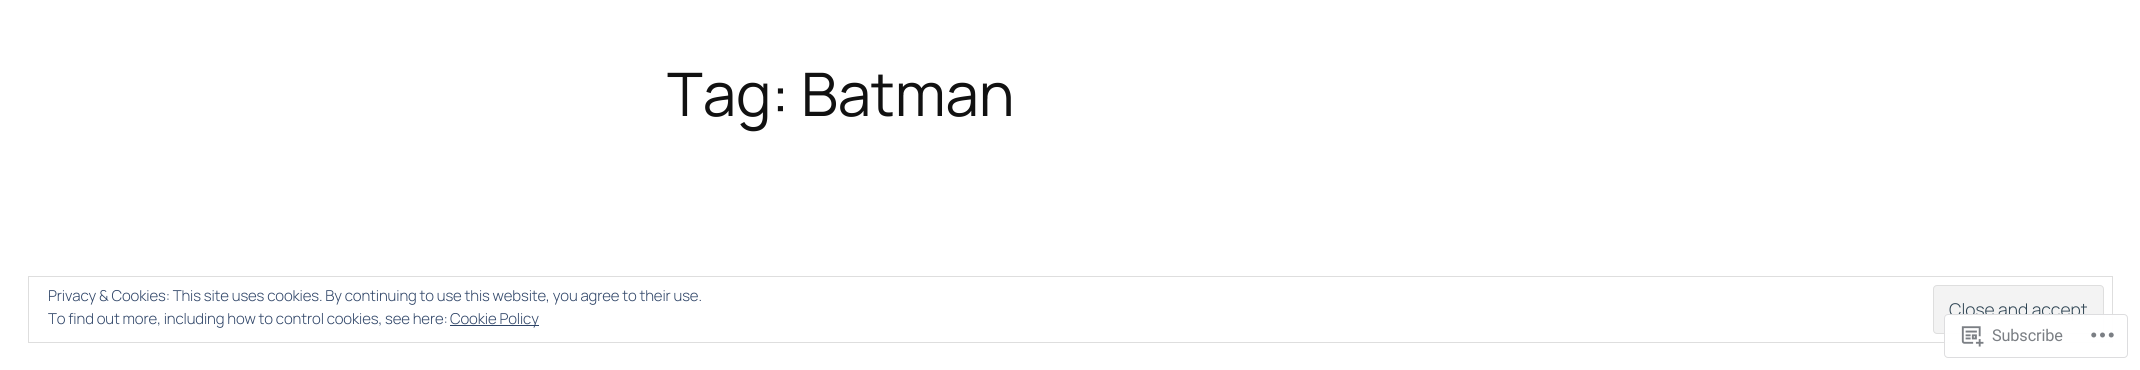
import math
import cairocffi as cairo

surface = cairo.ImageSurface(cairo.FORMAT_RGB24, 2140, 370)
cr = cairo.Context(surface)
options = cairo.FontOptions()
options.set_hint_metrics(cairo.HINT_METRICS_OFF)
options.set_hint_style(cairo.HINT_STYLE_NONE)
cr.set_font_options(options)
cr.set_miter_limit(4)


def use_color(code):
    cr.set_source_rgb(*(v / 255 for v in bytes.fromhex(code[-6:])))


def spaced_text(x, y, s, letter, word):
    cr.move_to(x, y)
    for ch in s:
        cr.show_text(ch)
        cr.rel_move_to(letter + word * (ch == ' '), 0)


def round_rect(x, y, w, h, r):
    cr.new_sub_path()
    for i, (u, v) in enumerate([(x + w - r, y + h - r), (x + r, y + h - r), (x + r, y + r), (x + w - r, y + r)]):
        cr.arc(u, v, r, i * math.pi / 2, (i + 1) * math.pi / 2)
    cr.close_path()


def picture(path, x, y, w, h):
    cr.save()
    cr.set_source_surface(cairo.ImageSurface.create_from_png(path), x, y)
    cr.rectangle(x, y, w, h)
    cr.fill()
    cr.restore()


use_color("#ffffff")
cr.paint()
cr.select_font_face("Manrope")
cr.set_font_size(60)
use_color("#111111")
spaced_text(667, 116, "Tag: Batman", -0.12, 0)
cr.rectangle(28.5, 276.5, 2084, 66)
use_color("#dedede")
cr.set_line_width(1)
cr.stroke()
cr.select_font_face("Manrope Light")
cr.set_font_size(15)
use_color("#2e4467")
spaced_text(48, 301, "Privacy & Cookies: This site uses cookies. By continuing to use this website, you agree to their use.", -0.12, 0)
spaced_text(48, 324, "To find out more, including how to control cookies, see here:", -0.12, 0)
cr.rectangle(450, 325, 89, 1)
cr.fill()
spaced_text(450, 324, "Cookie Policy", -0.12, 0)
use_color("#f3f3f3")
round_rect(1933.5, 285.5, 170, 48, 3.5)
cr.fill_preserve()
use_color("#dedede")
cr.stroke()
cr.set_font_size(17.5)
use_color("#2e4453")
cr.move_to(1949, 316)
cr.show_text("Close and accept")
cr.set_source_rgba(1, 1, 1, 0.98)
round_rect(1944, 314, 184, 44, 4)
cr.fill()
round_rect(1944.5, 314.5, 183, 43, 3.5)
cr.set_source_rgba(0.863, 0.863, 0.871, 0.98)
cr.stroke()
picture("img1.png", 1961, 326, 23, 21)
cr.select_font_face("Roboto")
cr.set_font_size(16.25)
use_color("#7b7f84")
spaced_text(1992, 341, "Subscribe", -0.12, 0)
picture("img2.png", 2091, 332, 23, 6)
surface.write_to_png("result.png")
